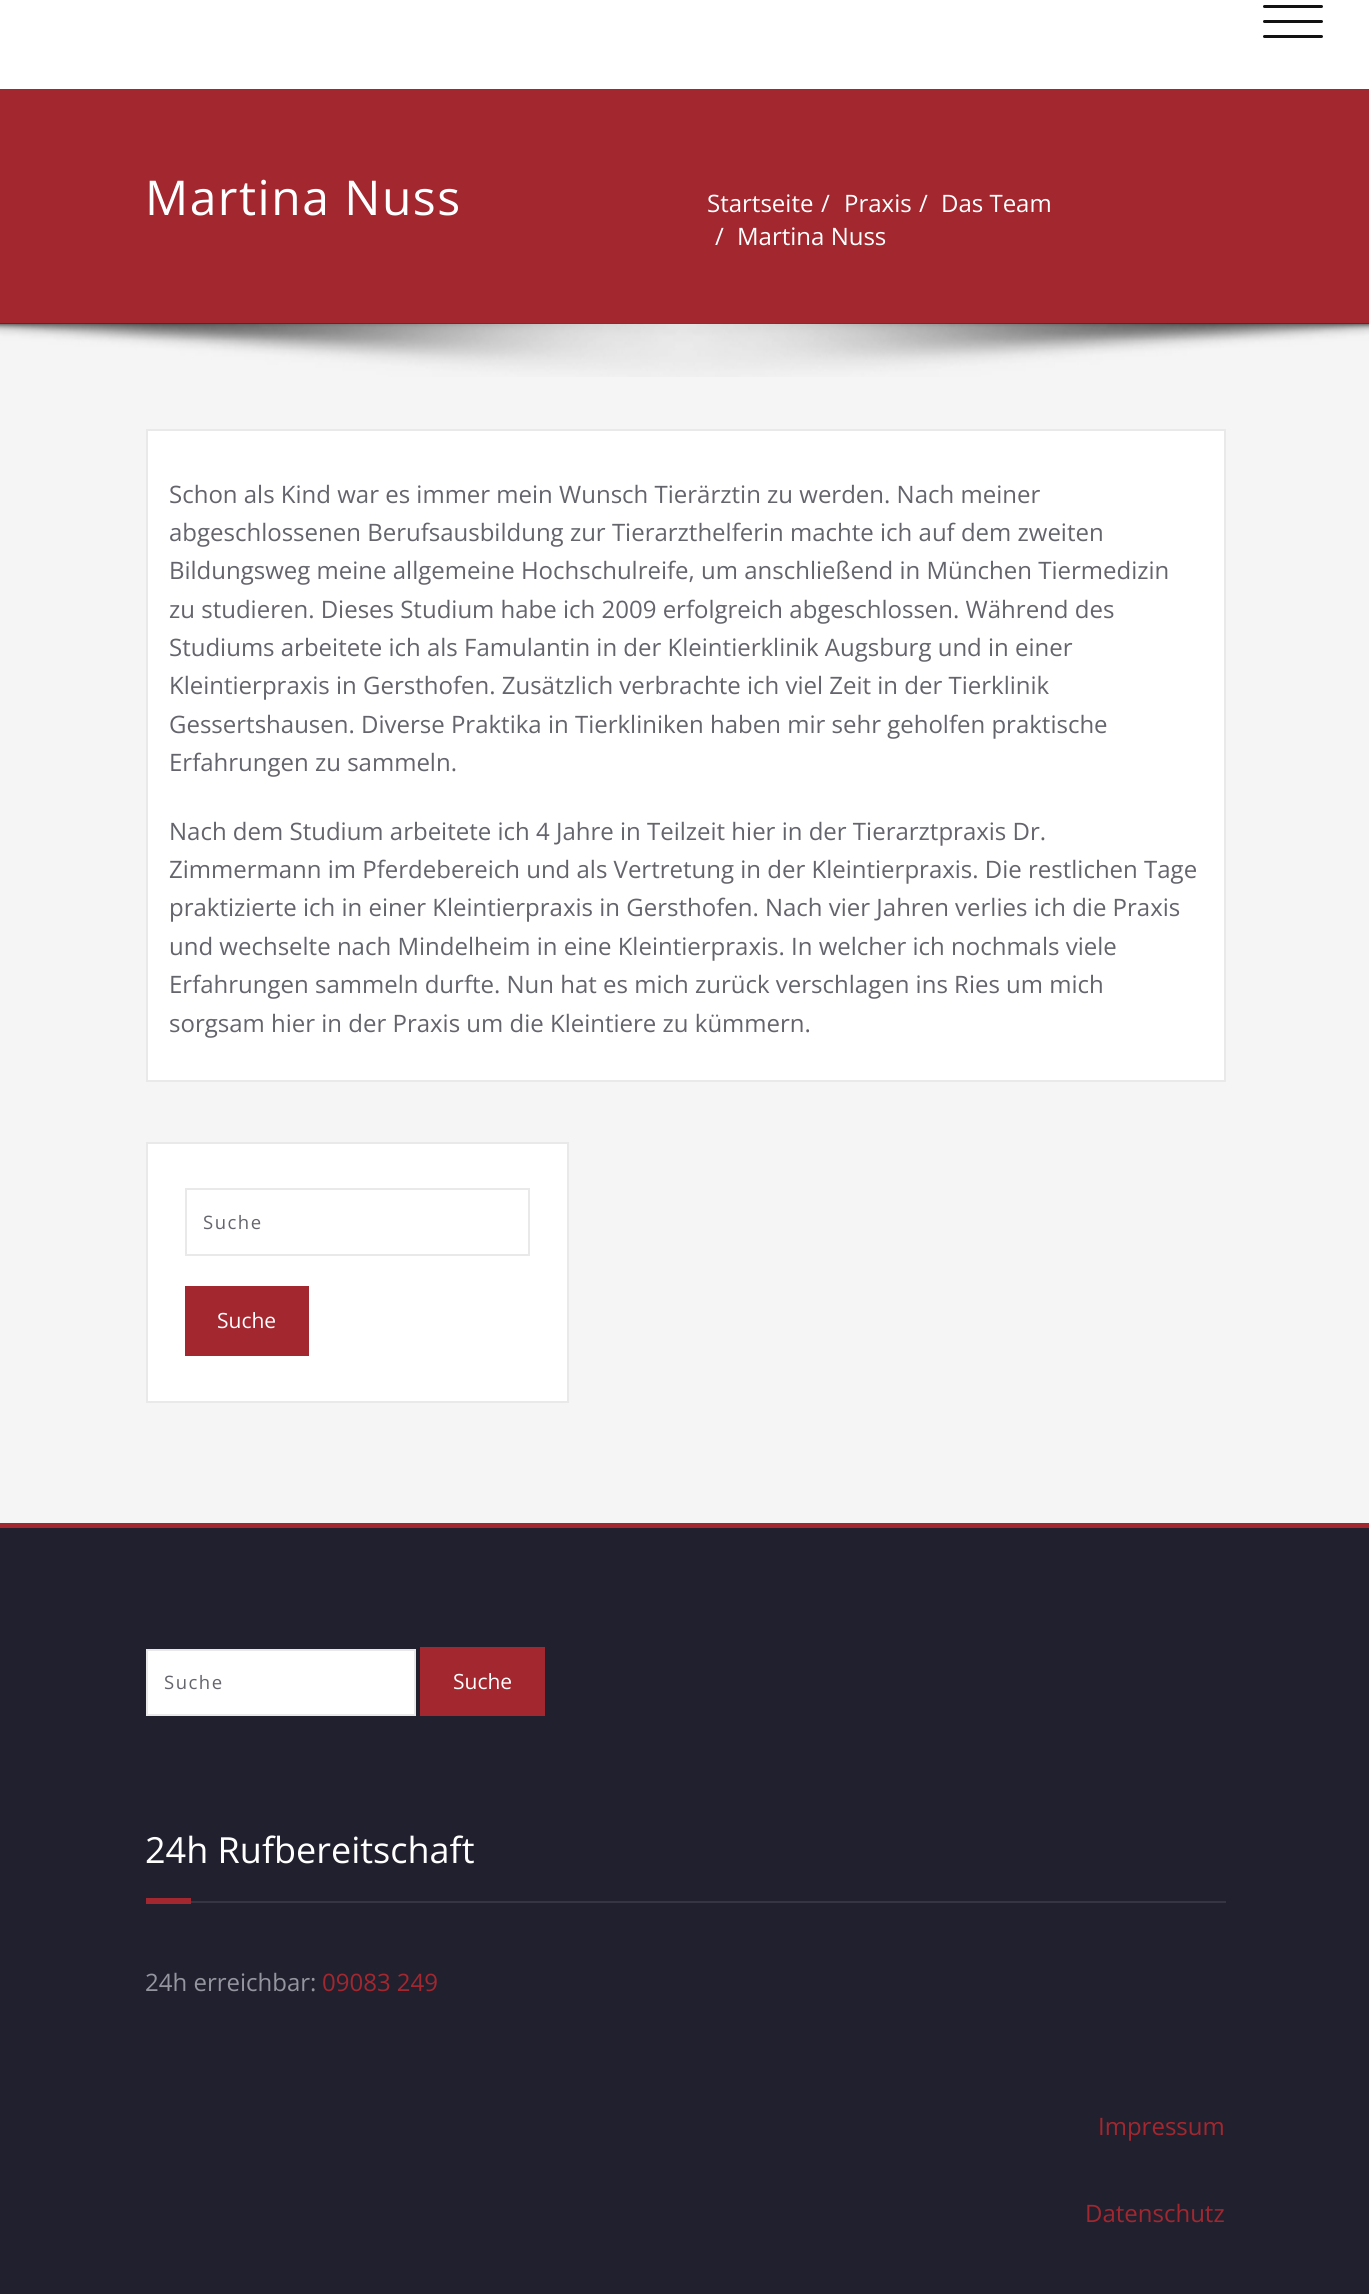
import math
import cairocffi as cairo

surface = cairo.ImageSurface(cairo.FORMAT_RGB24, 1369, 2294)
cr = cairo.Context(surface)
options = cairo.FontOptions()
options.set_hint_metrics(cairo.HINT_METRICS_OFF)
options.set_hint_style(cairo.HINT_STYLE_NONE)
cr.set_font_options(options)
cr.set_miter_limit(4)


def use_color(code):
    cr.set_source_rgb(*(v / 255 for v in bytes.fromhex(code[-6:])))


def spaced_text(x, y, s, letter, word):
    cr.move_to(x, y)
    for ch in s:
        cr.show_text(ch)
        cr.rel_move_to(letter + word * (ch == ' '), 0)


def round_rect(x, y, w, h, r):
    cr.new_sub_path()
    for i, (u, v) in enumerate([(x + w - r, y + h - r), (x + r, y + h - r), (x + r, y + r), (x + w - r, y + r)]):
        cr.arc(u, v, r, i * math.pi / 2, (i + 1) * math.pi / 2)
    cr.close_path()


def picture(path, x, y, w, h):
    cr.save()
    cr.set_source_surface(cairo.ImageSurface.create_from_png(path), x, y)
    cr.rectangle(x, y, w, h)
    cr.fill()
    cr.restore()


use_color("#f5f5f5")
cr.paint()
use_color("#ffffff")
cr.rectangle(0, 0, 1369, 89)
cr.fill()
use_color("#121213")
round_rect(1263, 5, 60, 3, 1.5)
cr.fill()
round_rect(1263, 20, 60, 3, 1.5)
cr.fill()
round_rect(1263, 35, 60, 3, 1.5)
cr.fill()
use_color("#a2272f")
cr.rectangle(0, 89, 1369, 235)
cr.fill()
cr.select_font_face("Open Sans")
cr.set_font_size(48)
use_color("#ffffff")
spaced_text(145, 215, "Martina Nuss", 1.5, 0)
cr.set_font_size(24)
cr.move_to(707, 212)
cr.show_text("Startseite")
cr.move_to(821, 212)
cr.show_text("/")
cr.move_to(844, 212)
cr.show_text("Praxis")
cr.move_to(919, 212)
cr.show_text("/")
cr.move_to(941, 212)
cr.show_text("Das Team")
cr.move_to(715, 245)
cr.show_text("/")
cr.move_to(737, 245)
cr.show_text("Martina Nuss")
picture("img1.png", 0, 323, 1369, 54)
cr.rectangle(147, 430, 1078, 651)
cr.fill_preserve()
use_color("#e9e9e9")
cr.stroke()
use_color("#64646d")
cr.move_to(169, 503)
cr.show_text("Schon als Kind war es immer mein Wunsch Tierärztin zu werden. Nach meiner")
cr.move_to(169, 541)
cr.show_text("abgeschlossenen Berufsausbildung zur Tierarzthelferin machte ich auf dem zweiten")
cr.move_to(169, 579)
cr.show_text("Bildungsweg meine allgemeine Hochschulreife, um anschließend in München Tiermedizin")
cr.move_to(169, 618)
cr.show_text("zu studieren. Dieses Studium habe ich 2009 erfolgreich abgeschlossen. Während des")
cr.move_to(169, 656)
cr.show_text("Studiums arbeitete ich als Famulantin in der Kleintierklinik Augsburg und in einer")
cr.move_to(169, 694)
cr.show_text("Kleintierpraxis in Gersthofen. Zusätzlich verbrachte ich viel Zeit in der Tierklinik")
cr.move_to(169, 733)
cr.show_text("Gessertshausen. Diverse Praktika in Tierkliniken haben mir sehr geholfen praktische")
cr.move_to(169, 771)
cr.show_text("Erfahrungen zu sammeln.")
cr.move_to(169, 840)
cr.show_text("Nach dem Studium arbeitete ich 4 Jahre in Teilzeit hier in der Tierarztpraxis Dr.")
cr.move_to(169, 878)
cr.show_text("Zimmermann im Pferdebereich und als Vertretung in der Kleintierpraxis. Die restlichen Tage")
cr.move_to(169, 916)
cr.show_text("praktizierte ich in einer Kleintierpraxis in Gersthofen. Nach vier Jahren verlies ich die Praxis")
cr.move_to(169, 955)
cr.show_text("und wechselte nach Mindelheim in eine Kleintierpraxis. In welcher ich nochmals viele")
cr.move_to(169, 993)
cr.show_text("Erfahrungen sammeln durfte. Nun hat es mich zurück verschlagen ins Ries um mich")
cr.move_to(169, 1032)
cr.show_text("sorgsam hier in der Praxis um die Kleintiere zu kümmern.")
use_color("#ffffff")
cr.rectangle(147, 1143, 421, 259)
cr.fill_preserve()
use_color("#e9e9e9")
cr.stroke()
cr.rectangle(186, 1189, 343, 66)
cr.stroke()
cr.set_font_size(18.5)
use_color("#64646d")
spaced_text(203, 1229, "Suche", 1.5, 0)
use_color("#a2272f")
cr.rectangle(185, 1286, 124, 70)
cr.fill()
cr.set_font_size(21)
use_color("#ffffff")
cr.move_to(217, 1328)
cr.show_text("Suche")
use_color("#21202e")
cr.rectangle(0, 1528, 1369, 766)
cr.fill()
use_color("#a2272f")
cr.rectangle(0, 1523, 1369, 5)
cr.fill()
use_color("#ffffff")
cr.rectangle(147, 1650, 268, 65)
cr.fill_preserve()
use_color("#e9e9e9")
cr.stroke()
cr.set_font_size(18.5)
use_color("#64646d")
spaced_text(164, 1689, "Suche", 1.5, 0)
use_color("#a2272f")
cr.rectangle(420, 1647, 125, 69)
cr.fill()
cr.set_font_size(21)
use_color("#ffffff")
cr.move_to(453, 1689)
cr.show_text("Suche")
use_color("#363544")
cr.rectangle(191, 1901, 1035, 2)
cr.fill()
cr.set_font_size(36)
use_color("#ffffff")
cr.move_to(145, 1863)
cr.show_text("24h Rufbereitschaft")
use_color("#a2272f")
cr.rectangle(146, 1898, 45, 6)
cr.fill()
cr.set_font_size(24)
use_color("#9595a0")
cr.move_to(145, 1991)
cr.show_text("24h erreichbar:")
use_color("#a2272f")
cr.move_to(322, 1991)
cr.show_text("09083 249")
cr.move_to(1098, 2135)
cr.show_text("Impressum")
cr.move_to(1085, 2222)
cr.show_text("Datenschutz")
surface.write_to_png("result.png")
